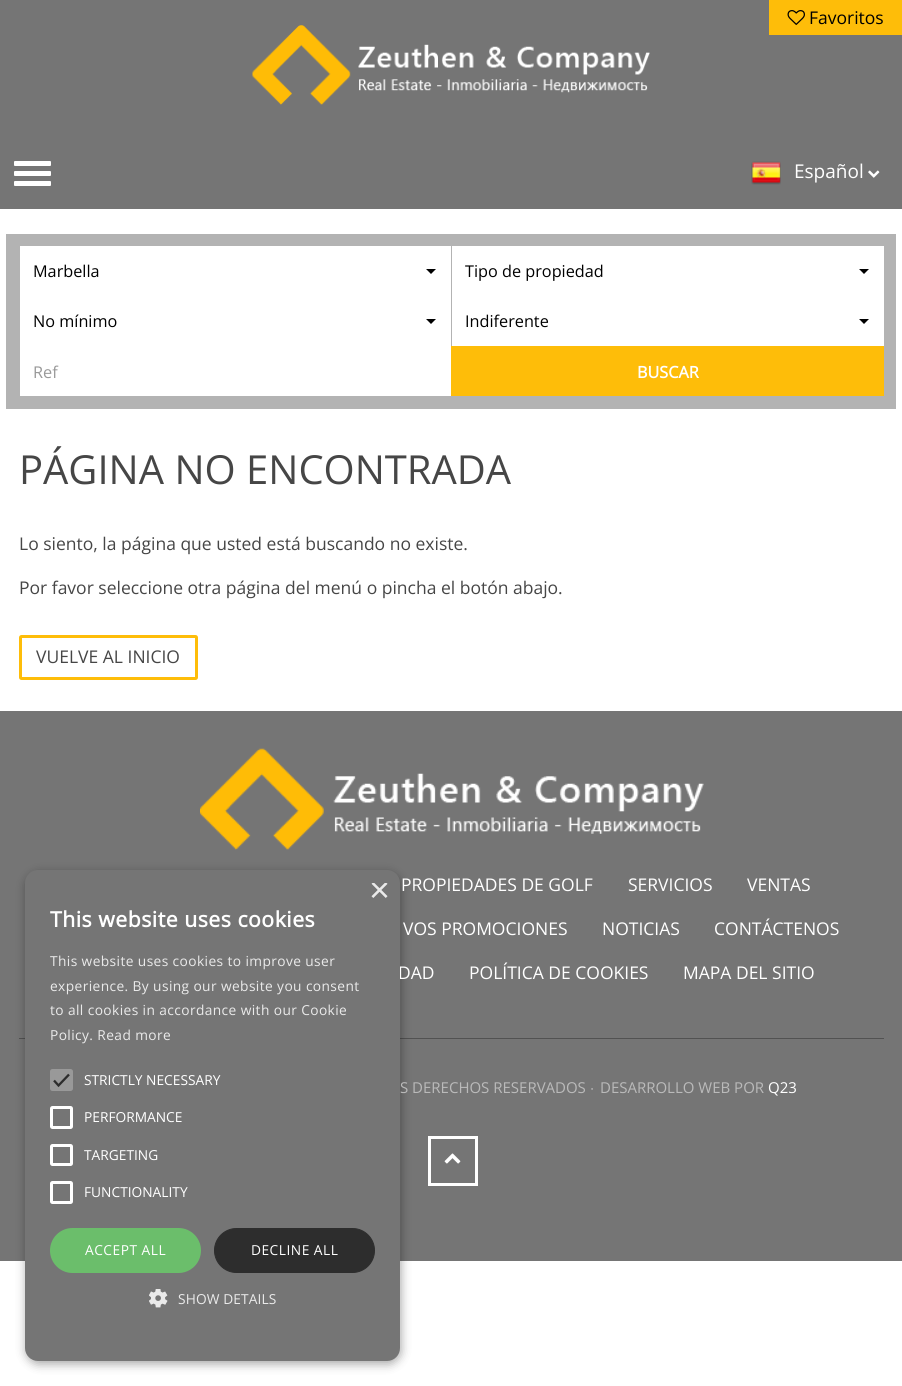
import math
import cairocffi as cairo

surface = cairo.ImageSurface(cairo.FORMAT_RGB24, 902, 1386)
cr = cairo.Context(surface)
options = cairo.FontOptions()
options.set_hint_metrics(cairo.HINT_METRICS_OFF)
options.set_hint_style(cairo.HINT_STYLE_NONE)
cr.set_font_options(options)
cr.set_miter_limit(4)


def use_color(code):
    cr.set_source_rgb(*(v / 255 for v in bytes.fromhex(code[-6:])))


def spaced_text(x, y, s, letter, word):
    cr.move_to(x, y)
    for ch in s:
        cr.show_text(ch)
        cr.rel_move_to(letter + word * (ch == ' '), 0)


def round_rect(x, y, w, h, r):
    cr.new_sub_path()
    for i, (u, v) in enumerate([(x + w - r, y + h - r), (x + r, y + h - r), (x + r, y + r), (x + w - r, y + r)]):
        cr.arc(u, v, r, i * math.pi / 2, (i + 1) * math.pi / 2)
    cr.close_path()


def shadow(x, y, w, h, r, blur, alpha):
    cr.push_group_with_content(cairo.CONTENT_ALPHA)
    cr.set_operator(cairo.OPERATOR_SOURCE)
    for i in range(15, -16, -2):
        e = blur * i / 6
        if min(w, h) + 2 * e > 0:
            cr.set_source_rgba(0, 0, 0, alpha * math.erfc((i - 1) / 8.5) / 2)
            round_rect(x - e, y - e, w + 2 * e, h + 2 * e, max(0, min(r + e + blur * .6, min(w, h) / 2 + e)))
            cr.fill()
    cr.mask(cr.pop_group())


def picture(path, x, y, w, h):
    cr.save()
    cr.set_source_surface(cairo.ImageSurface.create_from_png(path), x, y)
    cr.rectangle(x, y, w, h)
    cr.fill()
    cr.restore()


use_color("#ffffff")
cr.paint()
use_color("#757575")
cr.rectangle(0, 0, 902, 209)
cr.fill()
use_color("#febd09")
cr.rectangle(769, 0, 133, 35)
cr.fill()
picture("img1.png", 787, 10, 18, 15)
cr.select_font_face("Open Sans")
cr.set_font_size(17.5)
use_color("#000000")
cr.move_to(809, 24)
cr.show_text("Favoritos")
picture("img2.png", 252, 25, 398, 80)
use_color("#ffffff")
round_rect(14, 161, 37, 5, 1)
cr.fill()
round_rect(14, 171, 37, 5, 1)
cr.fill()
round_rect(14, 181, 37, 5, 1)
cr.fill()
picture("img3.png", 751, 161, 30, 24)
cr.set_font_size(19)
cr.move_to(794, 178)
cr.show_text("Español")
picture("img4.png", 868, 170, 12, 8)
cr.rectangle(12.5, 240.5, 877, 162)
use_color("#b3b3b3")
cr.set_line_width(13)
cr.stroke()
use_color("#ffffff")
cr.rectangle(20, 246, 864, 150)
cr.fill()
use_color("#b3b3b3")
cr.rectangle(19, 246, 1, 100)
cr.fill()
cr.set_font_size(16.25)
use_color("#000000")
cr.move_to(33, 277)
cr.show_text("Marbella")
cr.new_path()
cr.move_to(426, 269)
cr.line_to(436, 269)
cr.line_to(431, 274)
cr.close_path()
cr.fill()
use_color("#b3b3b3")
cr.rectangle(451, 246, 1, 100)
cr.fill()
use_color("#000000")
cr.move_to(465, 277)
cr.show_text("Tipo de propiedad")
cr.new_path()
cr.move_to(859, 269)
cr.line_to(869, 269)
cr.line_to(864, 274)
cr.close_path()
cr.fill()
cr.move_to(33, 327)
cr.show_text("No mínimo")
cr.new_path()
cr.move_to(426, 319)
cr.line_to(436, 319)
cr.line_to(431, 324)
cr.close_path()
cr.fill()
cr.move_to(465, 327)
cr.show_text("Indiferente")
cr.new_path()
cr.move_to(859, 319)
cr.line_to(869, 319)
cr.line_to(864, 324)
cr.close_path()
cr.fill()
use_color("#b3b3b3")
cr.rectangle(19, 346, 1, 50)
cr.fill()
use_color("#999999")
cr.move_to(33, 378)
cr.show_text("Ref")
use_color("#febd09")
cr.rectangle(451, 346, 433, 50)
cr.fill()
cr.select_font_face("Open Sans", cairo.FONT_SLANT_NORMAL, cairo.FONT_WEIGHT_BOLD)
use_color("#ffffff")
cr.move_to(637, 378)
cr.show_text("BUSCAR")
cr.select_font_face("Open Sans")
cr.set_font_size(40)
use_color("#464646")
cr.move_to(19, 484)
cr.show_text("PÁGINA NO ENCONTRADA")
cr.set_font_size(17.5)
cr.move_to(19, 550)
cr.show_text("Lo siento, la página que usted está buscando no existe.")
cr.move_to(19, 594)
cr.show_text("Por favor seleccione otra página del menú o pincha el botón abajo.")
round_rect(20.5, 636.5, 176, 42, 1)
use_color("#febd09")
cr.set_line_width(3)
cr.stroke()
use_color("#464646")
cr.move_to(36, 663)
cr.show_text("VUELVE AL INICIO")
use_color("#757575")
cr.rectangle(0, 711, 902, 550)
cr.fill()
use_color("#525252")
cr.rectangle(19, 1038, 865, 1)
cr.fill()
use_color("#000000")
shadow(26, 873, 375, 491, 13, 5, 0.35)
use_color("#ffffff")
cr.move_to(398, 979)
cr.show_text("DAD")
use_color("#757575")
round_rect(25, 870, 375, 491, 13)
cr.fill()
cr.save()
cr.rectangle(369, 883, 19, 18)
cr.clip()
cr.select_font_face("Liberation Sans")
cr.set_font_size(36)
use_color("#eaeaea")
cr.move_to(369, 902)
cr.show_text("×")
cr.restore()
cr.select_font_face("Open Sans", cairo.FONT_SLANT_NORMAL, cairo.FONT_WEIGHT_BOLD)
cr.set_font_size(21.25)
use_color("#ffffff")
spaced_text(50, 927, "This website uses cookies", 0.5, 0)
cr.select_font_face("Open Sans")
cr.set_font_size(13.75)
use_color("#eaeaea")
spaced_text(50, 966, "This website uses cookies to improve user", 0.4, 0)
spaced_text(50, 991, "experience. By using our website you consent", 0.4, 0)
spaced_text(50, 1015, "to all cookies in accordance with our Cookie", 0.4, 0)
spaced_text(50, 1040, "Policy. Read more", 0.4, 0)
use_color("#999999")
round_rect(50, 1069, 23, 22, 2.5)
cr.fill()
cr.new_path()
cr.move_to(54, 1080.5)
cr.line_to(58.5, 1085.5)
cr.line_to(69, 1074.5)
use_color("#2d2d2d")
cr.set_line_width(2.3)
cr.stroke()
use_color("#ffffff")
cr.move_to(84, 1085)
cr.show_text("STRICTLY NECESSARY")
round_rect(51.5, 1107.5, 20, 20, 1)
cr.set_line_width(3)
cr.stroke()
cr.move_to(84, 1122)
cr.show_text("PERFORMANCE")
round_rect(51.5, 1145.5, 20, 19, 1)
cr.stroke()
cr.move_to(84, 1160)
cr.show_text("TARGETING")
round_rect(51.5, 1182.5, 20, 20, 1)
cr.stroke()
cr.move_to(84, 1197)
cr.show_text("FUNCTIONALITY")
use_color("#6bbe6b")
round_rect(50, 1228, 151, 45, 22.5)
cr.fill()
use_color("#ffffff")
spaced_text(85, 1255, "ACCEPT ALL", 0.5, 0)
use_color("#2d2d2d")
round_rect(214.5, 1228.5, 160, 44, 22)
cr.fill_preserve()
cr.set_line_width(1)
cr.stroke()
use_color("#ffffff")
spaced_text(251, 1255, "DECLINE ALL", 0.5, 0)
picture("img5.png", 149, 1289, 19, 19)
use_color("#eaeaea")
spaced_text(178, 1304, "SHOW DETAILS", 0.1, 0)
picture("img6.png", 200, 748, 504, 102)
cr.set_font_size(17.5)
use_color("#ffffff")
cr.move_to(401, 891)
cr.show_text("PROPIEDADES DE GOLF")
cr.move_to(628, 891)
cr.show_text("SERVICIOS")
cr.move_to(747, 891)
cr.show_text("VENTAS")
cr.move_to(403, 935)
cr.show_text("VOS PROMOCIONES")
cr.move_to(602, 935)
cr.show_text("NOTICIAS")
cr.move_to(714, 935)
cr.show_text("CONTÁCTENOS")
cr.move_to(469, 979)
cr.show_text("POLÍTICA DE COOKIES")
cr.move_to(683, 979)
cr.show_text("MAPA DEL SITIO")
cr.set_font_size(15)
use_color("#bababa")
cr.move_to(400, 1093)
cr.show_text("S DERECHOS RESERVADOS")
cr.select_font_face("Liberation Sans")
cr.move_to(590, 1093)
cr.show_text("∙")
cr.select_font_face("Open Sans")
cr.move_to(600, 1093)
cr.show_text("DESARROLLO WEB POR")
use_color("#ffffff")
cr.move_to(768, 1093)
cr.show_text("Q23")
cr.rectangle(429.5, 1137.5, 47, 47)
cr.set_line_width(3)
cr.stroke()
picture("img7.png", 444, 1153, 17, 11)
surface.write_to_png("result.png")
